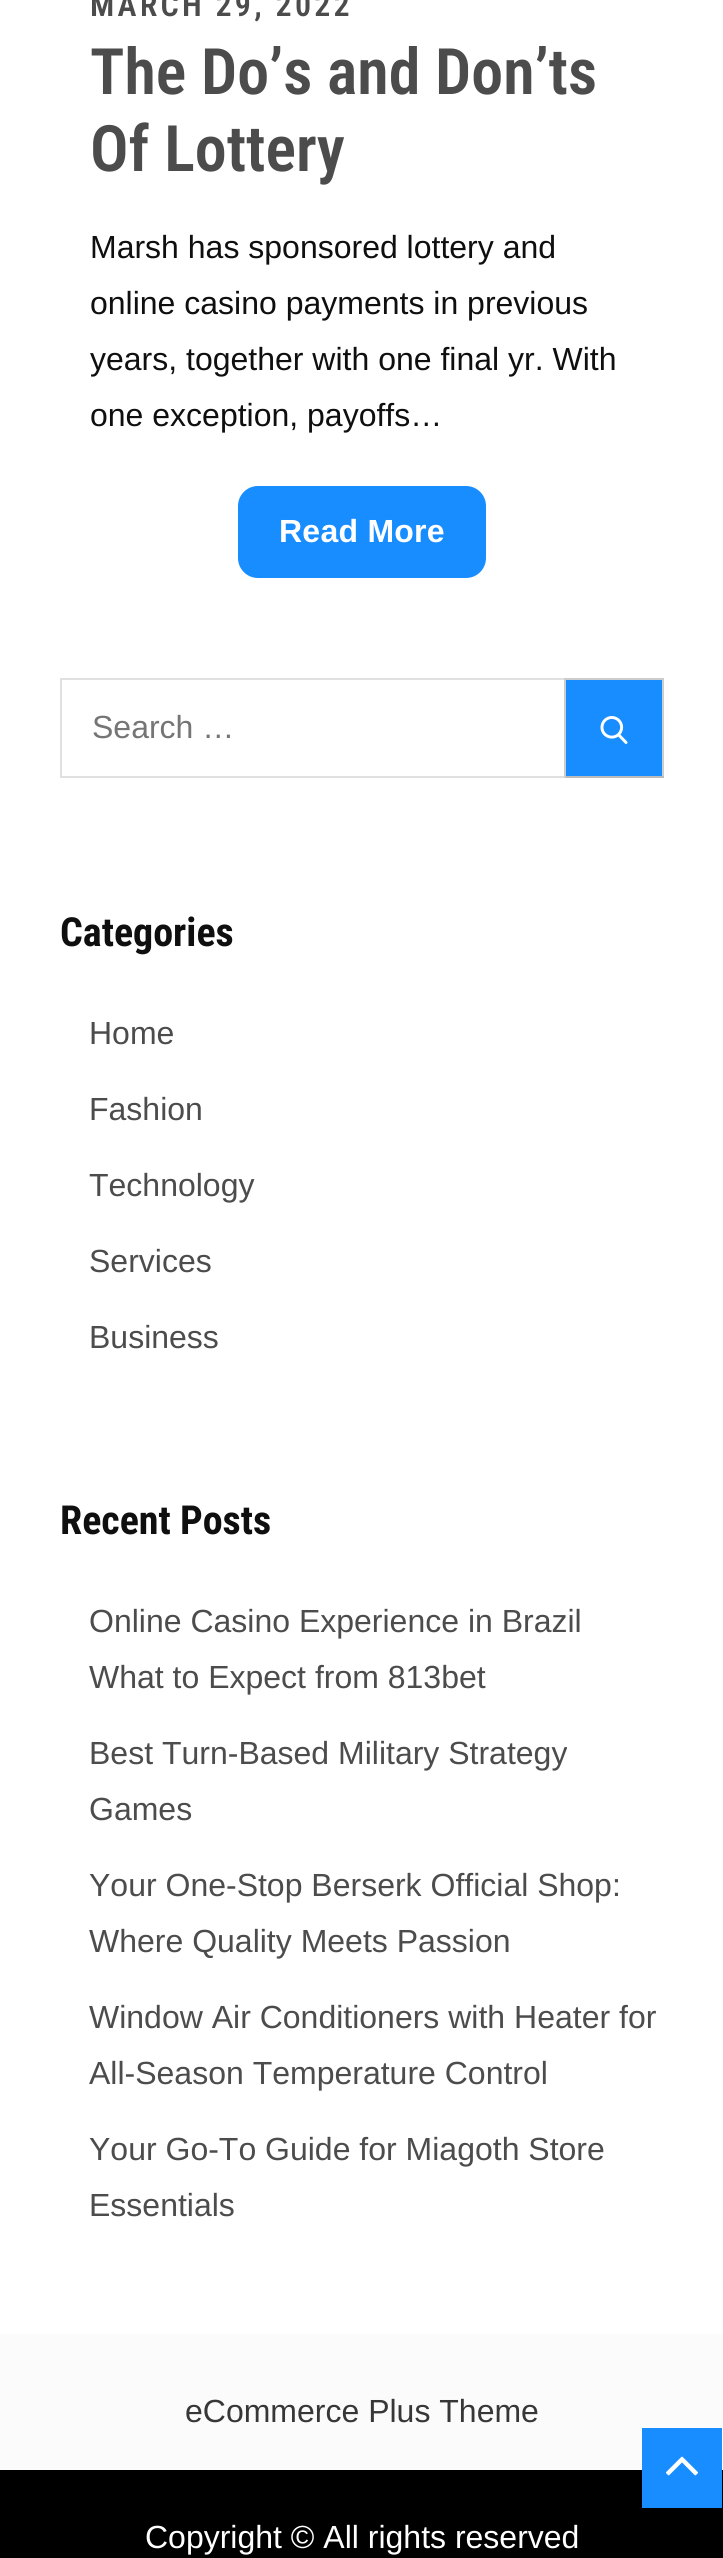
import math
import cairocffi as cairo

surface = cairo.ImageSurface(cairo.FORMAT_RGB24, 723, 2558)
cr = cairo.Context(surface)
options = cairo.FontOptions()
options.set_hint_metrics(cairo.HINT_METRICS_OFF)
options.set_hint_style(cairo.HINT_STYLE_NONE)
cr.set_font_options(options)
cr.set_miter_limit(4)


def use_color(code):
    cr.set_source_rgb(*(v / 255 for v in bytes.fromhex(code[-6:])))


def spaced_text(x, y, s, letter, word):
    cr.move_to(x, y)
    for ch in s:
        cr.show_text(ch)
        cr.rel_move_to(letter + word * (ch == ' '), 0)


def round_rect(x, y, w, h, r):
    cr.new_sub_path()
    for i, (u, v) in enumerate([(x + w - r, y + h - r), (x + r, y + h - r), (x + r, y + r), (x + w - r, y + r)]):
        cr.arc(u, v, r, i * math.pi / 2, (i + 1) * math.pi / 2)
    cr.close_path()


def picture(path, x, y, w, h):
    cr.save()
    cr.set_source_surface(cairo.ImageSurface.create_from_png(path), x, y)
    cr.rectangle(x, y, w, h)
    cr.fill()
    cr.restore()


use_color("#ffffff")
cr.paint()
cr.select_font_face("Roboto Condensed SemiBold")
cr.set_font_size(32)
use_color("#4c4c4c")
spaced_text(90, 16, "MARCH 29, 2022", 3.25, 0)
cr.set_font_size(64)
cr.move_to(90, 94)
cr.show_text("The Do’s and Don’ts")
cr.move_to(90, 171)
cr.show_text("Of Lottery")
cr.select_font_face("Liberation Sans")
cr.set_font_size(32)
use_color("#0f0f0f")
cr.move_to(90, 258)
cr.show_text("Marsh has sponsored lottery and")
cr.move_to(90, 314)
cr.show_text("online casino payments in previous")
cr.move_to(90, 370)
cr.show_text("years, together with one final yr. With")
cr.move_to(90, 426)
cr.show_text("one exception, payoffs…")
use_color("#178dff")
round_rect(238, 486, 248, 92, 20)
cr.fill()
cr.select_font_face("Liberation Sans", cairo.FONT_SLANT_NORMAL, cairo.FONT_WEIGHT_BOLD)
use_color("#ffffff")
spaced_text(279, 542, "Read More", 0.25, 0)
cr.rectangle(61, 679, 602, 98)
use_color("#e0e0e0")
cr.stroke()
cr.select_font_face("Liberation Sans")
use_color("#757575")
cr.move_to(92, 738)
cr.show_text("Search …")
use_color("#178dff")
cr.rectangle(566, 680, 96, 96)
cr.fill()
use_color("#cccccc")
cr.rectangle(564, 678, 100, 2)
cr.fill()
cr.rectangle(662, 678, 2, 100)
cr.fill()
use_color("#bbbbbb")
cr.rectangle(564, 776, 100, 2)
cr.fill()
use_color("#cccccc")
cr.rectangle(564, 678, 2, 100)
cr.fill()
picture("img1.png", 600, 716, 28, 28)
cr.select_font_face("Roboto Condensed", cairo.FONT_SLANT_NORMAL, cairo.FONT_WEIGHT_BOLD)
cr.set_font_size(40)
use_color("#0f0f0f")
cr.move_to(60, 946)
cr.show_text("Categories")
cr.select_font_face("Liberation Sans")
cr.set_font_size(32)
use_color("#4c4c4c")
cr.move_to(89, 1044)
cr.show_text("Home")
cr.move_to(89, 1120)
cr.show_text("Fashion")
cr.move_to(89, 1196)
cr.show_text("Technology")
cr.move_to(89, 1272)
cr.show_text("Services")
cr.move_to(89, 1348)
cr.show_text("Business")
cr.select_font_face("Roboto Condensed", cairo.FONT_SLANT_NORMAL, cairo.FONT_WEIGHT_BOLD)
cr.set_font_size(40)
use_color("#0f0f0f")
cr.move_to(60, 1534)
cr.show_text("Recent Posts")
cr.select_font_face("Liberation Sans")
cr.set_font_size(32)
use_color("#4c4c4c")
cr.move_to(89, 1632)
cr.show_text("Online Casino Experience in Brazil")
cr.move_to(89, 1688)
cr.show_text("What to Expect from 813bet")
cr.move_to(89, 1764)
cr.show_text("Best Turn-Based Military Strategy")
cr.move_to(89, 1820)
cr.show_text("Games")
cr.move_to(89, 1896)
cr.show_text("Your One-Stop Berserk Official Shop:")
cr.move_to(89, 1952)
cr.show_text("Where Quality Meets Passion")
cr.move_to(89, 2028)
cr.show_text("Window Air Conditioners with Heater for")
cr.move_to(89, 2084)
cr.show_text("All-Season Temperature Control")
cr.move_to(89, 2160)
cr.show_text("Your Go-To Guide for Miagoth Store")
cr.move_to(89, 2216)
cr.show_text("Essentials")
use_color("#fbfbfb")
cr.rectangle(0, 2334, 723, 136)
cr.fill()
use_color("#373737")
cr.move_to(185, 2422)
cr.show_text("eCommerce Plus Theme")
use_color("#000000")
cr.rectangle(0, 2470, 723, 88)
cr.fill()
use_color("#178dff")
cr.rectangle(642, 2428, 80, 80)
cr.fill()
picture("img2.png", 666, 2456, 32, 20)
use_color("#ffffff")
cr.move_to(145, 2548)
cr.show_text("Copyright © All rights reserved")
surface.write_to_png("result.png")
